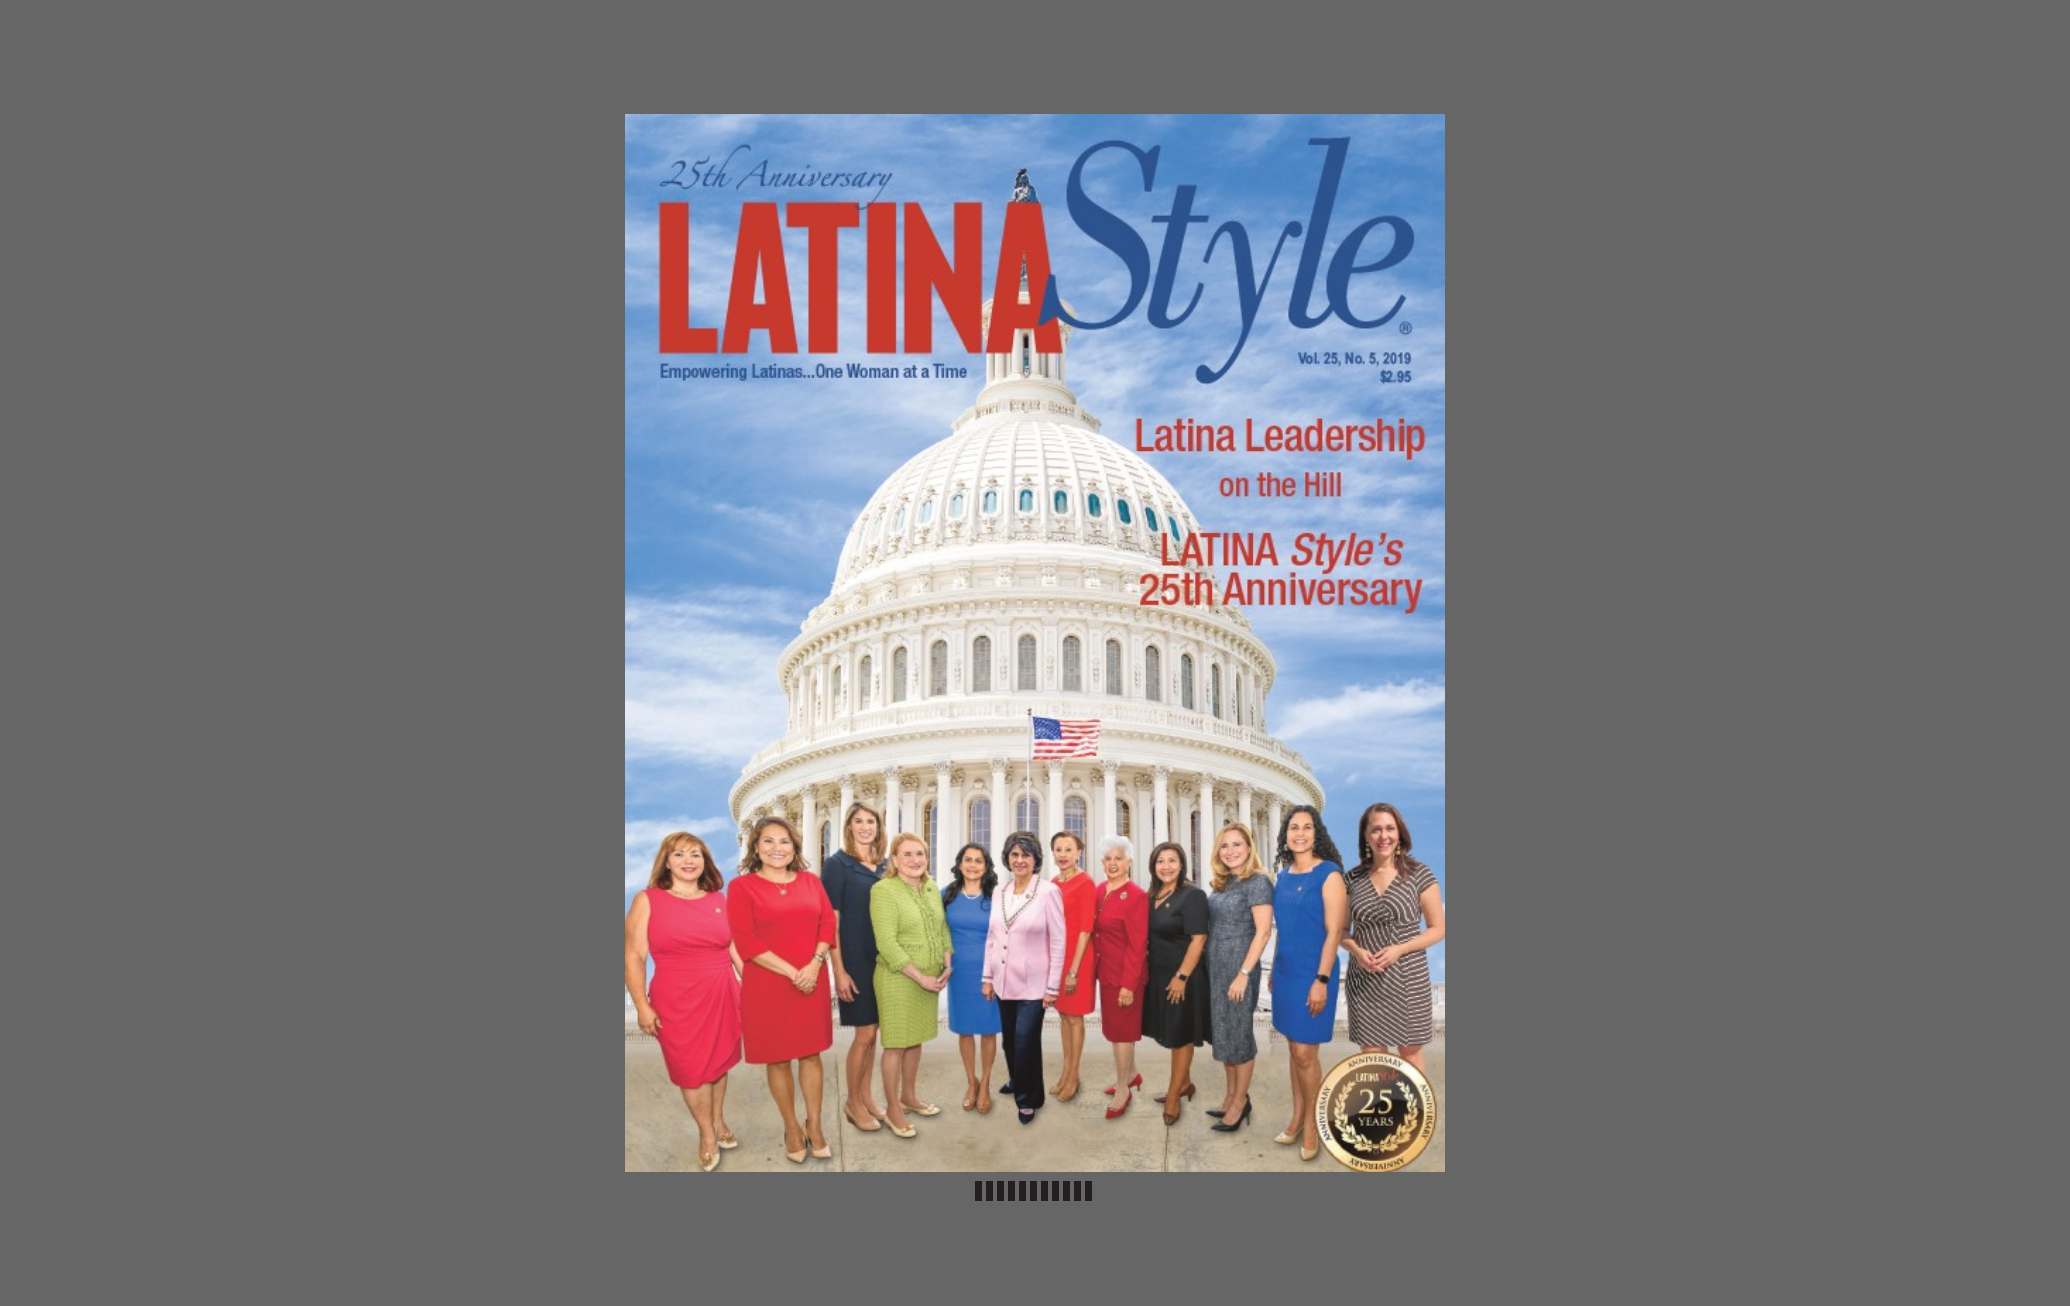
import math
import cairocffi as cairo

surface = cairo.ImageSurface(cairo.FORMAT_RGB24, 2070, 1306)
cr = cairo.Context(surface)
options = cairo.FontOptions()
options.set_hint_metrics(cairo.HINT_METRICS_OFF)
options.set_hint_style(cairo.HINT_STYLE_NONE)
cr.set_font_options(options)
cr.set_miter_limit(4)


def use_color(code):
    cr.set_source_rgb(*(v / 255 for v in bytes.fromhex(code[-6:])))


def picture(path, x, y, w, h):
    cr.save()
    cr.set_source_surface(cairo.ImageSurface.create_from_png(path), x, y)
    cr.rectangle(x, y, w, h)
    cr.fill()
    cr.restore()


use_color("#666666")
cr.paint()
picture("img1.png", 625, 114, 820, 1058)
picture("img2.png", 975, 1181, 117, 20)
surface.write_to_png("result.png")
